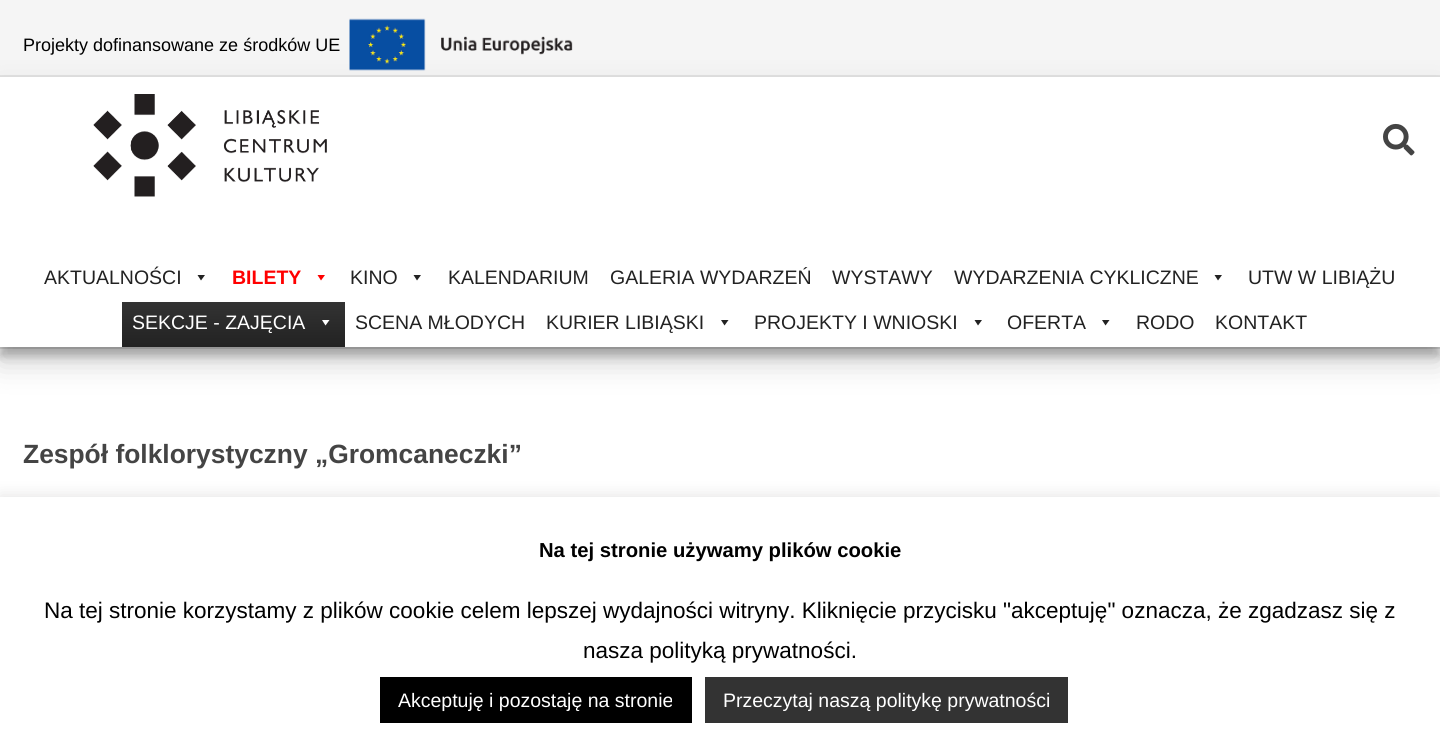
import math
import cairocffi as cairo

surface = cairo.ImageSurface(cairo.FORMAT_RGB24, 1440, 741)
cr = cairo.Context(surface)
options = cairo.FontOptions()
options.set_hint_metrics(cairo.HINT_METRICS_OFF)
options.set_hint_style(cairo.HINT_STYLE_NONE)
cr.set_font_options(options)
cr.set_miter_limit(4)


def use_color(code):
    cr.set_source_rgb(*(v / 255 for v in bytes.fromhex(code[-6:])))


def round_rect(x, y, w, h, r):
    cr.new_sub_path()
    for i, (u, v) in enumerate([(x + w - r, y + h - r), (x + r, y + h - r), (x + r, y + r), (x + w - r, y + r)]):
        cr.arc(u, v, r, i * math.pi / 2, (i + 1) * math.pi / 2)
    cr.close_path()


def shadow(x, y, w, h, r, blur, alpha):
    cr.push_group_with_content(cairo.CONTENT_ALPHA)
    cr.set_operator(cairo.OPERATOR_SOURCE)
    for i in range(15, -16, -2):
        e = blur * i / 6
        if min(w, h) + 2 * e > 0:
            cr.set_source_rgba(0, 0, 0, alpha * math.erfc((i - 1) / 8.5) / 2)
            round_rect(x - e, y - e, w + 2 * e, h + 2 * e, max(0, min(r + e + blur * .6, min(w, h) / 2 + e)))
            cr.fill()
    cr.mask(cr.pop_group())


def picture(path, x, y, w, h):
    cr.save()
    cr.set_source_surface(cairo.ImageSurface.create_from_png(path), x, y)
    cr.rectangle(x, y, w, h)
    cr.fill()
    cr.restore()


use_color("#ffffff")
cr.paint()
use_color("#e3e3e3")
cr.rectangle(0, 347, 1440, 2)
cr.fill()
use_color("#f5f5f5")
cr.rectangle(0, 0, 1440, 75)
cr.fill()
use_color("#e3e3e3")
cr.rectangle(0, 75, 1440, 2)
cr.fill()
use_color("#000000")
shadow(0, 92, 1440, 270, 0, 15, 0.19)
cr.select_font_face("Liberation Sans")
cr.set_font_size(18)
use_color("#000000")
cr.move_to(23, 51)
cr.show_text("Projekty dofinansowane ze środków UE")
picture("img1.png", 349, 18, 224, 53)
use_color("#000000")
shadow(0, 86, 1440, 270, 0, 4.5, 0.23)
use_color("#ffffff")
cr.rectangle(0, 77, 1440, 270)
cr.fill()
picture("img2.png", 93, 94, 234, 103)
picture("img3.png", 1383, 123, 32, 33)
cr.set_font_size(19.5)
use_color("#222222")
cr.move_to(44, 284)
cr.show_text("AKTUALNOŚCI")
cr.new_path()
cr.move_to(205, 275)
cr.line_to(201, 280.5)
cr.line_to(197.5, 275)
cr.close_path()
cr.fill()
cr.select_font_face("Liberation Sans", cairo.FONT_SLANT_NORMAL, cairo.FONT_WEIGHT_BOLD)
use_color("#ff0000")
cr.move_to(232, 284)
cr.show_text("BILETY")
cr.new_path()
cr.move_to(325, 275)
cr.line_to(321, 280.5)
cr.line_to(317.5, 275)
cr.close_path()
cr.fill()
cr.select_font_face("Liberation Sans")
use_color("#222222")
cr.move_to(350, 284)
cr.show_text("KINO")
cr.new_path()
cr.move_to(421, 275)
cr.line_to(417, 280.5)
cr.line_to(413.5, 275)
cr.close_path()
cr.fill()
cr.move_to(448, 284)
cr.show_text("KALENDARIUM")
cr.move_to(610, 284)
cr.show_text("GALERIA WYDARZEŃ")
cr.move_to(832, 284)
cr.show_text("WYSTAWY")
cr.move_to(954, 284)
cr.show_text("WYDARZENIA CYKLICZNE")
cr.new_path()
cr.move_to(1222, 275)
cr.line_to(1218, 280.5)
cr.line_to(1214.5, 275)
cr.close_path()
cr.fill()
cr.move_to(1248, 284)
cr.show_text("UTW W LIBIĄŻU")
gradient = cairo.LinearGradient(233, 302, 233, 347)
gradient.add_color_stop_rgba(0, 0.2, 0.2, 0.2, 1)
gradient.add_color_stop_rgba(1, 0.133, 0.133, 0.133, 1)
cr.set_source(gradient)
cr.rectangle(122, 302, 223, 45)
cr.fill()
use_color("#ffffff")
cr.move_to(132, 329)
cr.show_text("SEKCJE - ZAJĘCIA")
cr.new_path()
cr.move_to(329.5, 320)
cr.line_to(325.5, 325.5)
cr.line_to(322, 320)
cr.close_path()
cr.fill()
use_color("#222222")
cr.move_to(355, 329)
cr.show_text("SCENA MŁODYCH")
cr.move_to(546, 329)
cr.show_text("KURIER LIBIĄSKI")
cr.new_path()
cr.move_to(728.5, 320)
cr.line_to(724.5, 325.5)
cr.line_to(721, 320)
cr.close_path()
cr.fill()
cr.move_to(754, 329)
cr.show_text("PROJEKTY I WNIOSKI")
cr.new_path()
cr.move_to(982, 320)
cr.line_to(978, 325.5)
cr.line_to(974.5, 320)
cr.close_path()
cr.fill()
cr.move_to(1007, 329)
cr.show_text("OFERTA")
cr.new_path()
cr.move_to(1109.5, 320)
cr.line_to(1105.5, 325.5)
cr.line_to(1102, 320)
cr.close_path()
cr.fill()
cr.move_to(1136, 329)
cr.show_text("RODO")
cr.move_to(1215, 329)
cr.show_text("KONTAKT")
cr.select_font_face("Liberation Sans", cairo.FONT_SLANT_NORMAL, cairo.FONT_WEIGHT_BOLD)
cr.set_font_size(26.4)
use_color("#444444")
cr.move_to(23, 463)
cr.show_text("Zespół folklorystyczny „Gromcaneczki”")
use_color("#acabab")
shadow(0, 495, 1440, 245, 0, 7.5, 0.3)
use_color("#ffffff")
cr.rectangle(0, 497, 1440, 244)
cr.fill()
cr.set_font_size(20.25)
use_color("#000000")
cr.move_to(539, 557)
cr.show_text("Na tej stronie używamy plików cookie")
cr.select_font_face("Liberation Sans")
cr.set_font_size(22.5)
cr.move_to(44, 618)
cr.show_text("Na tej stronie korzystamy z plików cookie celem lepszej wydajności witryny. Kliknięcie przycisku \"akceptuję\" oznacza, że zgadzasz się z")
cr.move_to(583, 658)
cr.show_text("nasza polityką prywatności.")
cr.rectangle(380, 677, 312, 46)
cr.fill()
cr.set_font_size(19.5)
use_color("#ffffff")
cr.move_to(398, 707)
cr.show_text("Akceptuję i pozostaję na stronie")
use_color("#333333")
cr.rectangle(705, 677, 363, 46)
cr.fill()
use_color("#ffffff")
cr.move_to(723, 707)
cr.show_text("Przeczytaj naszą politykę prywatności")
surface.write_to_png("result.png")
